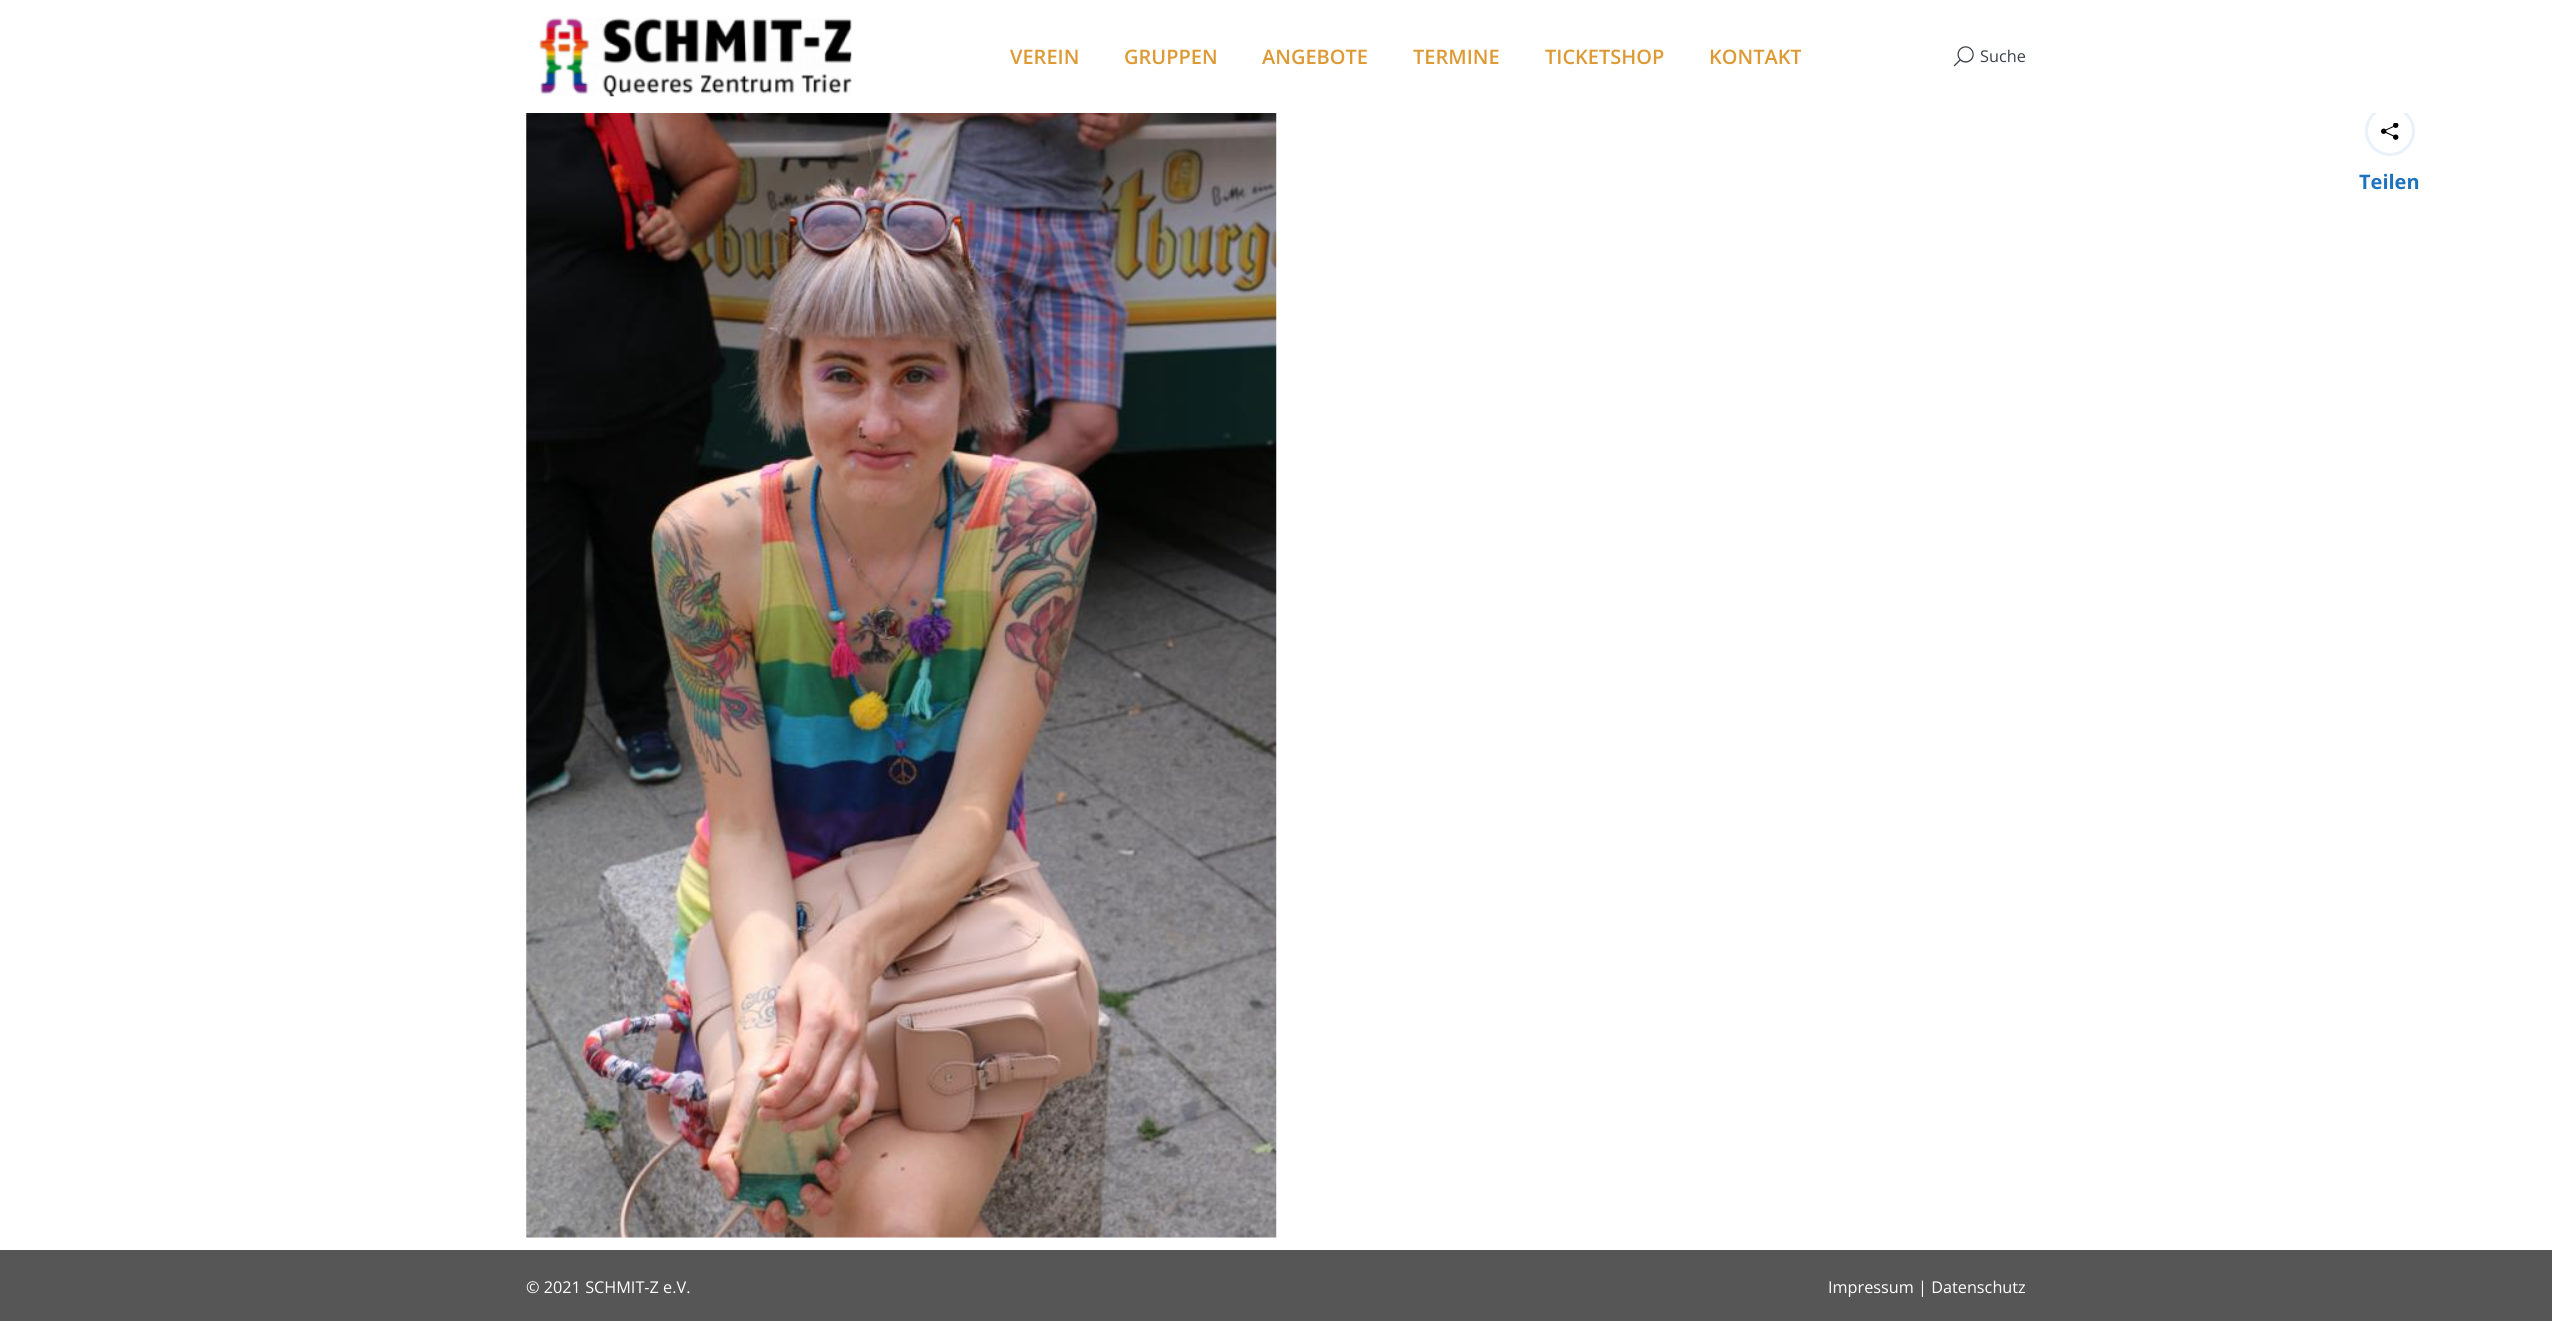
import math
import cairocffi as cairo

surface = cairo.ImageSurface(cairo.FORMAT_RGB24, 2552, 1321)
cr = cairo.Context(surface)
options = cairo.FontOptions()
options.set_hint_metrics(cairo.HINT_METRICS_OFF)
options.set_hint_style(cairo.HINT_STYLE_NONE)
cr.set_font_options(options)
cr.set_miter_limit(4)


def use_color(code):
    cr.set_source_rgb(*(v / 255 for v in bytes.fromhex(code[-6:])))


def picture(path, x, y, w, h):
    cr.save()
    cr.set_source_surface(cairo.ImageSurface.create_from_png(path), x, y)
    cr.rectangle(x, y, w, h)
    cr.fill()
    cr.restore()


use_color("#ffffff")
cr.paint()
cr.arc(2390, 131, 23.5, 0, 2 * math.pi)
use_color("#e9f1f9")
cr.set_line_width(3)
cr.stroke()
use_color("#ffffff")
cr.rectangle(2373, 106, 34, 7)
cr.fill()
picture("img1.png", 539, 17, 313, 80)
cr.select_font_face("Open Sans SemiBold")
cr.set_font_size(20)
use_color("#dd9933")
cr.move_to(1010, 64)
cr.show_text("VEREIN")
cr.move_to(1124, 64)
cr.show_text("GRUPPEN")
cr.move_to(1262, 64)
cr.show_text("ANGEBOTE")
cr.move_to(1413, 64)
cr.show_text("TERMINE")
cr.move_to(1545, 64)
cr.show_text("TICKETSHOP")
cr.move_to(1709, 64)
cr.show_text("KONTAKT")
picture("img2.png", 1953, 46, 21, 21)
cr.select_font_face("Open Sans")
cr.set_font_size(16.25)
use_color("#3b3f4a")
cr.move_to(1980, 62)
cr.show_text("Suche")
picture("img3.png", 526, 113, 751, 1125)
picture("img4.png", 2381, 123, 18, 17)
cr.select_font_face("Open Sans", cairo.FONT_SLANT_NORMAL, cairo.FONT_WEIGHT_BOLD)
cr.set_font_size(20)
use_color("#1e73be")
cr.move_to(2359, 189)
cr.show_text("Teilen")
use_color("#565656")
cr.rectangle(0, 1250, 2552, 71)
cr.fill()
cr.select_font_face("Open Sans")
cr.set_font_size(16.25)
use_color("#ffffff")
cr.move_to(526, 1293)
cr.show_text("© 2021 SCHMIT-Z e.V.")
cr.move_to(1828, 1293)
cr.show_text("Impressum | Datenschutz")
surface.write_to_png("result.png")
